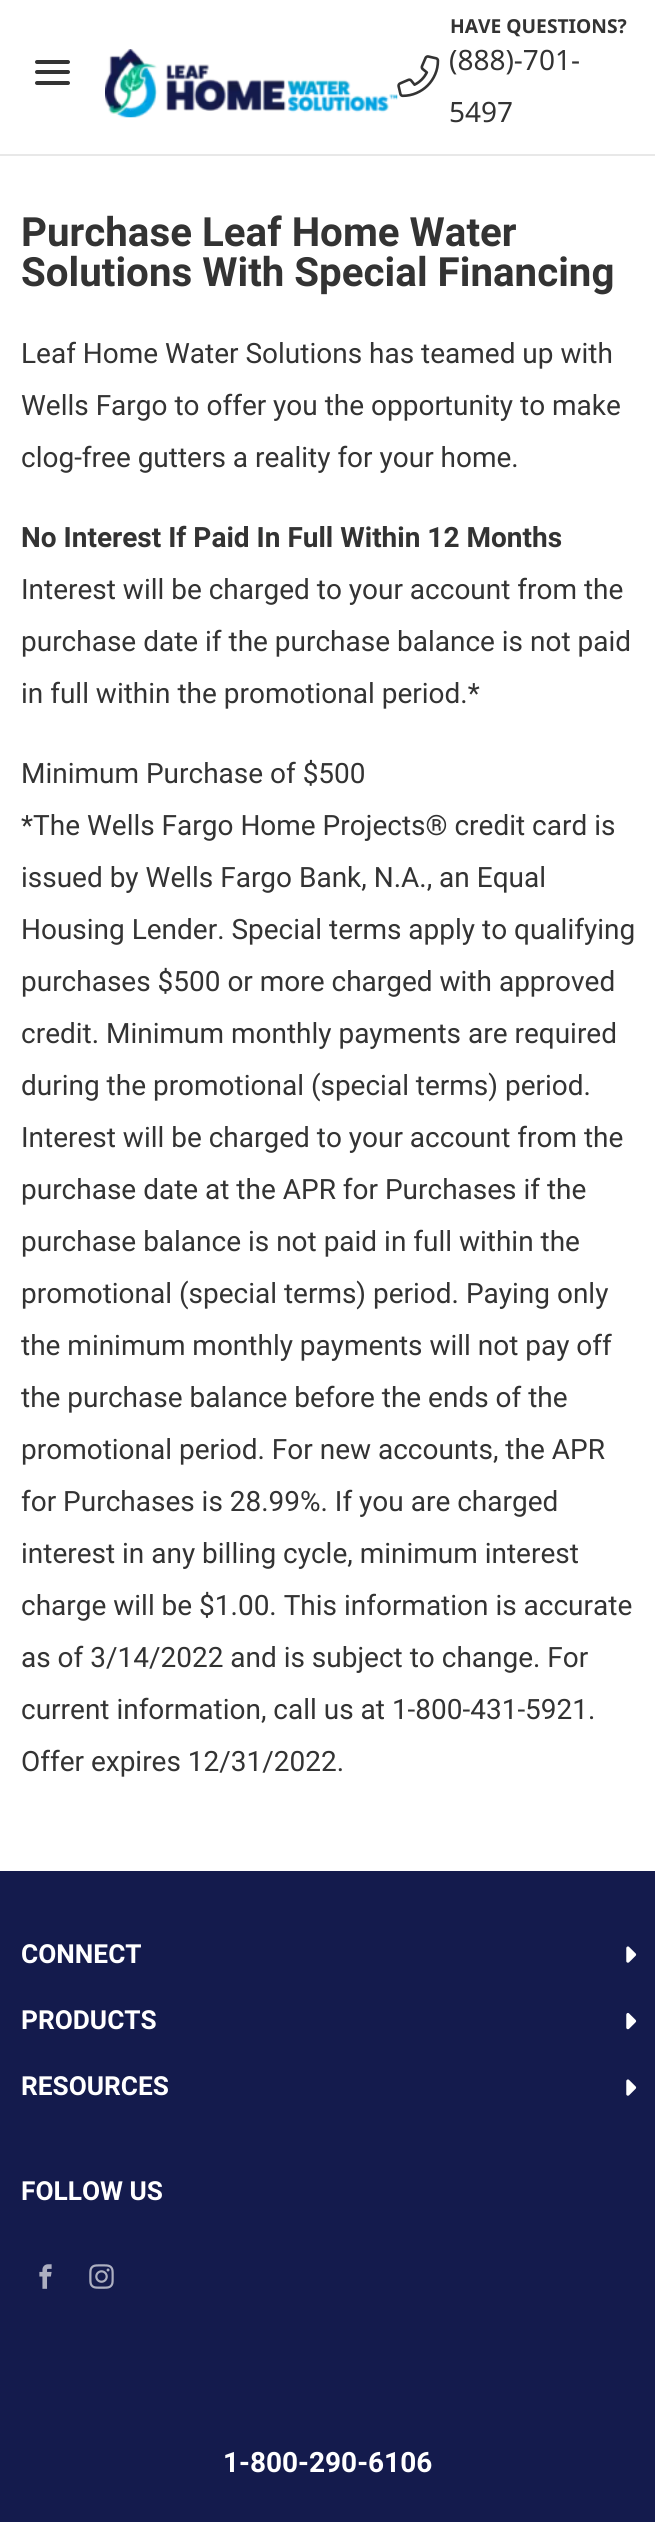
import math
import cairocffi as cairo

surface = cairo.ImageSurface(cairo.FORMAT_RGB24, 655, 2522)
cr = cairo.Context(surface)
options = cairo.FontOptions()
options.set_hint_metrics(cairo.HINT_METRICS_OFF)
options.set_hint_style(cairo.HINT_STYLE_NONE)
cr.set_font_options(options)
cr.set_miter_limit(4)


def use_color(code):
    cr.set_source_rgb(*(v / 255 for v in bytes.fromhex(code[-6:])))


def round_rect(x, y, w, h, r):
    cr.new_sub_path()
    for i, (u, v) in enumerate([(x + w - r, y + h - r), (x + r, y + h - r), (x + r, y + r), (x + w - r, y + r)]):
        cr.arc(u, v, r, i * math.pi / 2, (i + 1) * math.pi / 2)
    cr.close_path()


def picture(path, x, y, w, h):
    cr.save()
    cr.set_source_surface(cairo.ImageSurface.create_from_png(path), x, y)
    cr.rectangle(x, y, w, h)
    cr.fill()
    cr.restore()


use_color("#ffffff")
cr.paint()
use_color("#e8e8e8")
cr.rectangle(0, 154, 655, 2)
cr.fill()
use_color("#333333")
round_rect(35, 60, 35, 4, 2)
cr.fill()
round_rect(35, 70, 35, 4, 2)
cr.fill()
round_rect(35, 81, 35, 4, 2)
cr.fill()
picture("img1.png", 105, 49, 293, 69)
picture("img2.png", 397, 55, 43, 43)
cr.select_font_face("Noto Sans", cairo.FONT_SLANT_NORMAL, cairo.FONT_WEIGHT_BOLD)
cr.set_font_size(19.25)
cr.move_to(450, 33)
cr.show_text("HAVE QUESTIONS?")
cr.select_font_face("Noto Sans")
cr.set_font_size(28)
cr.move_to(449, 70)
cr.show_text("(888)-701-")
cr.move_to(449, 122)
cr.show_text("5497")
cr.select_font_face("Roboto", cairo.FONT_SLANT_NORMAL, cairo.FONT_WEIGHT_BOLD)
cr.set_font_size(40.3)
cr.move_to(21, 246)
cr.show_text("Purchase Leaf Home Water")
cr.move_to(21, 286)
cr.show_text("Solutions With Special Financing")
cr.select_font_face("Roboto")
cr.set_font_size(28)
cr.move_to(21, 363)
cr.show_text("Leaf Home Water Solutions has teamed up with")
cr.move_to(21, 415)
cr.show_text("Wells Fargo to offer you the opportunity to make")
cr.move_to(21, 467)
cr.show_text("clog-free gutters a reality for your home.")
cr.select_font_face("Roboto", cairo.FONT_SLANT_NORMAL, cairo.FONT_WEIGHT_BOLD)
cr.move_to(21, 547)
cr.show_text("No Interest If Paid In Full Within 12 Months")
cr.select_font_face("Roboto")
cr.move_to(21, 599)
cr.show_text("Interest will be charged to your account from the")
cr.move_to(21, 651)
cr.show_text("purchase date if the purchase balance is not paid")
cr.move_to(21, 703)
cr.show_text("in full within the promotional period.*")
cr.move_to(21, 783)
cr.show_text("Minimum Purchase of $500")
cr.move_to(21, 835)
cr.show_text("*The Wells Fargo Home Projects® credit card is")
cr.move_to(21, 887)
cr.show_text("issued by Wells Fargo Bank, N.A., an Equal")
cr.move_to(21, 939)
cr.show_text("Housing Lender. Special terms apply to qualifying")
cr.move_to(21, 991)
cr.show_text("purchases $500 or more charged with approved")
cr.move_to(21, 1043)
cr.show_text("credit. Minimum monthly payments are required")
cr.move_to(21, 1095)
cr.show_text("during the promotional (special terms) period.")
cr.move_to(21, 1147)
cr.show_text("Interest will be charged to your account from the")
cr.move_to(21, 1199)
cr.show_text("purchase date at the APR for Purchases if the")
cr.move_to(21, 1251)
cr.show_text("purchase balance is not paid in full within the")
cr.move_to(21, 1303)
cr.show_text("promotional (special terms) period. Paying only")
cr.move_to(21, 1355)
cr.show_text("the minimum monthly payments will not pay off")
cr.move_to(21, 1407)
cr.show_text("the purchase balance before the ends of the")
cr.move_to(21, 1459)
cr.show_text("promotional period. For new accounts, the APR")
cr.move_to(21, 1511)
cr.show_text("for Purchases is 28.99%. If you are charged")
cr.move_to(21, 1563)
cr.show_text("interest in any billing cycle, minimum interest")
cr.move_to(21, 1615)
cr.show_text("charge will be $1.00. This information is accurate")
cr.move_to(21, 1667)
cr.show_text("as of 3/14/2022 and is subject to change. For")
cr.move_to(21, 1719)
cr.show_text("current information, call us at 1-800-431-5921.")
cr.move_to(21, 1771)
cr.show_text("Offer expires 12/31/2022.")
use_color("#141b4d")
cr.rectangle(0, 1871, 655, 651)
cr.fill()
cr.select_font_face("Roboto", cairo.FONT_SLANT_NORMAL, cairo.FONT_WEIGHT_BOLD)
cr.set_font_size(26.25)
use_color("#ffffff")
cr.move_to(21, 1963)
cr.show_text("CONNECT")
picture("img3.png", 626, 1946, 11, 17)
cr.move_to(21, 2029)
cr.show_text("PRODUCTS")
picture("img4.png", 626, 2012, 11, 18)
cr.move_to(21, 2095)
cr.show_text("RESOURCES")
picture("img3.png", 626, 2079, 11, 17)
cr.move_to(21, 2200)
cr.show_text("FOLLOW US")
picture("img5.png", 39, 2264, 13, 25)
picture("img6.png", 89, 2264, 25, 25)
cr.set_font_size(28)
cr.move_to(223, 2472)
cr.show_text("1-800-290-6106")
surface.write_to_png("result.png")
